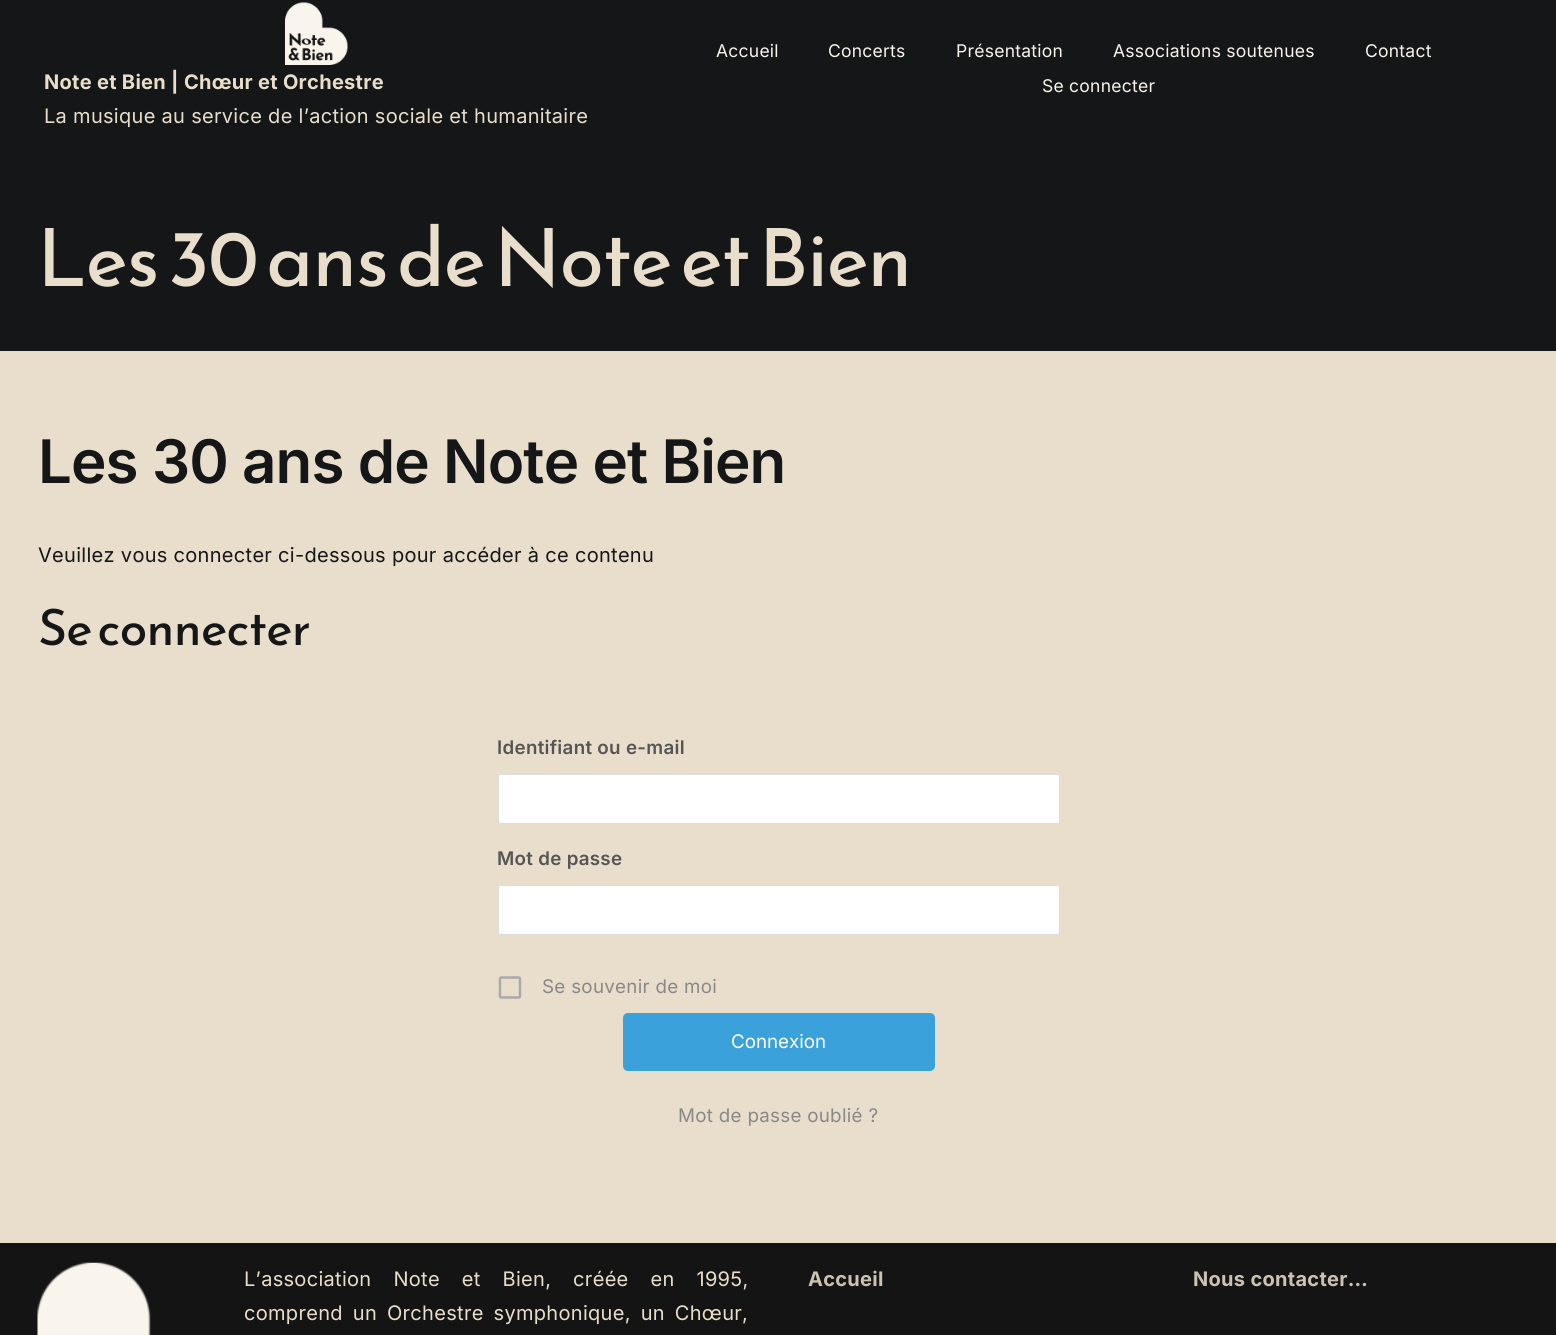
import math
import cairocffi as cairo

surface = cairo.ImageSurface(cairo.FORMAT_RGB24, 1556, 1335)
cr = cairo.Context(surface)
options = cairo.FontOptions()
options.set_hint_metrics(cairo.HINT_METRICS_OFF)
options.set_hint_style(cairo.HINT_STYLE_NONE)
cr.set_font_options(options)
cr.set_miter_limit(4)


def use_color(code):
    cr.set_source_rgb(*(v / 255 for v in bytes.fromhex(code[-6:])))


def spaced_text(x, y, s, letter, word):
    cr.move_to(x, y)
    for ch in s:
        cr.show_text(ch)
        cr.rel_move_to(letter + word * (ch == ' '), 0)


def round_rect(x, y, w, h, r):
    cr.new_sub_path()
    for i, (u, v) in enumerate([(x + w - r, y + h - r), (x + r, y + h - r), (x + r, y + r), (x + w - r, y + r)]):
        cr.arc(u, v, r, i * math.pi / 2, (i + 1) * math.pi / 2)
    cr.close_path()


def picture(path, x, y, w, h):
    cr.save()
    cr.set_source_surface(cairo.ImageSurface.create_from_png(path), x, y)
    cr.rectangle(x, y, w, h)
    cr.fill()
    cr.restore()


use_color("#e9decc")
cr.paint()
use_color("#141617")
cr.rectangle(0, 0, 1556, 351)
cr.fill()
picture("img1.png", 285, 2, 63, 63)
cr.select_font_face("Inter", cairo.FONT_SLANT_NORMAL, cairo.FONT_WEIGHT_BOLD)
cr.set_font_size(20)
use_color("#e9decc")
spaced_text(44, 89, "Note et Bien | Chœur et Orchestre", 0.3, 0)
cr.select_font_face("Inter")
spaced_text(44, 123, "La musique au service de l’action sociale et humanitaire", 0.3, 0)
cr.set_font_size(17.5)
use_color("#f9f4ec")
spaced_text(716, 57, "Accueil", 0.25, 0)
spaced_text(828, 57, "Concerts", 0.25, 0)
spaced_text(956, 57, "Présentation", 0.25, 0)
spaced_text(1113, 57, "Associations soutenues", 0.25, 0)
spaced_text(1365, 57, "Contact", 0.25, 0)
spaced_text(1042, 92, "Se connecter", 0.25, 0)
cr.select_font_face("Reem Kufi")
cr.set_font_size(80)
use_color("#e9decc")
spaced_text(37, 286, "Les 30 ans de Note et Bien", -1.2, 0)
cr.select_font_face("Inter SemiBold")
cr.set_font_size(60)
use_color("#141617")
spaced_text(38, 483, "Les 30 ans de Note et Bien", -0.9, 0)
cr.select_font_face("Inter")
cr.set_font_size(20)
spaced_text(38, 562, "Veuillez vous connecter ci-dessous pour accéder à ce contenu", 0.3, 0)
cr.select_font_face("Reem Kufi")
cr.set_font_size(50)
spaced_text(38, 645, "Se connecter", -0.75, 0)
cr.select_font_face("Inter SemiBold")
cr.set_font_size(18.75)
use_color("#555555")
spaced_text(497, 754, "Identifiant ou e-mail", 0.3, 0)
use_color("#ffffff")
round_rect(498.5, 774.5, 561, 49, 2)
cr.fill_preserve()
use_color("#dddddd")
cr.set_line_width(1)
cr.stroke()
use_color("#555555")
spaced_text(497, 865, "Mot de passe", 0.3, 0)
use_color("#ffffff")
round_rect(498.5, 885.5, 561, 49, 2)
cr.fill_preserve()
use_color("#dddddd")
cr.stroke()
picture("img2.png", 498, 976, 24, 23)
cr.select_font_face("Inter")
use_color("#888888")
spaced_text(542, 993, "Se souvenir de moi", 0.3, 0)
use_color("#3ba1da")
round_rect(623, 1013, 312, 58, 5)
cr.fill()
use_color("#ffffff")
cr.move_to(731, 1048)
cr.show_text("Connexion")
use_color("#888888")
spaced_text(678, 1122, "Mot de passe oublié ?", 0.3, 0)
use_color("#151414")
cr.rectangle(0, 1243, 1556, 92)
cr.fill()
picture("img3.png", 37, 1262, 114, 73)
cr.set_font_size(20)
use_color("#e9decc")
spaced_text(244, 1286, "L’association Note et Bien, créée en 1995,", 0.3, 16)
spaced_text(244, 1320, "comprend un Orchestre symphonique, un Chœur,", 0.3, 4)
cr.select_font_face("Inter", cairo.FONT_SLANT_NORMAL, cairo.FONT_WEIGHT_BOLD)
use_color("#ccc2b3")
spaced_text(808, 1286, "Accueil", 0.3, 0)
spaced_text(1193, 1286, "Nous contacter…", 0.3, 0)
surface.write_to_png("result.png")
